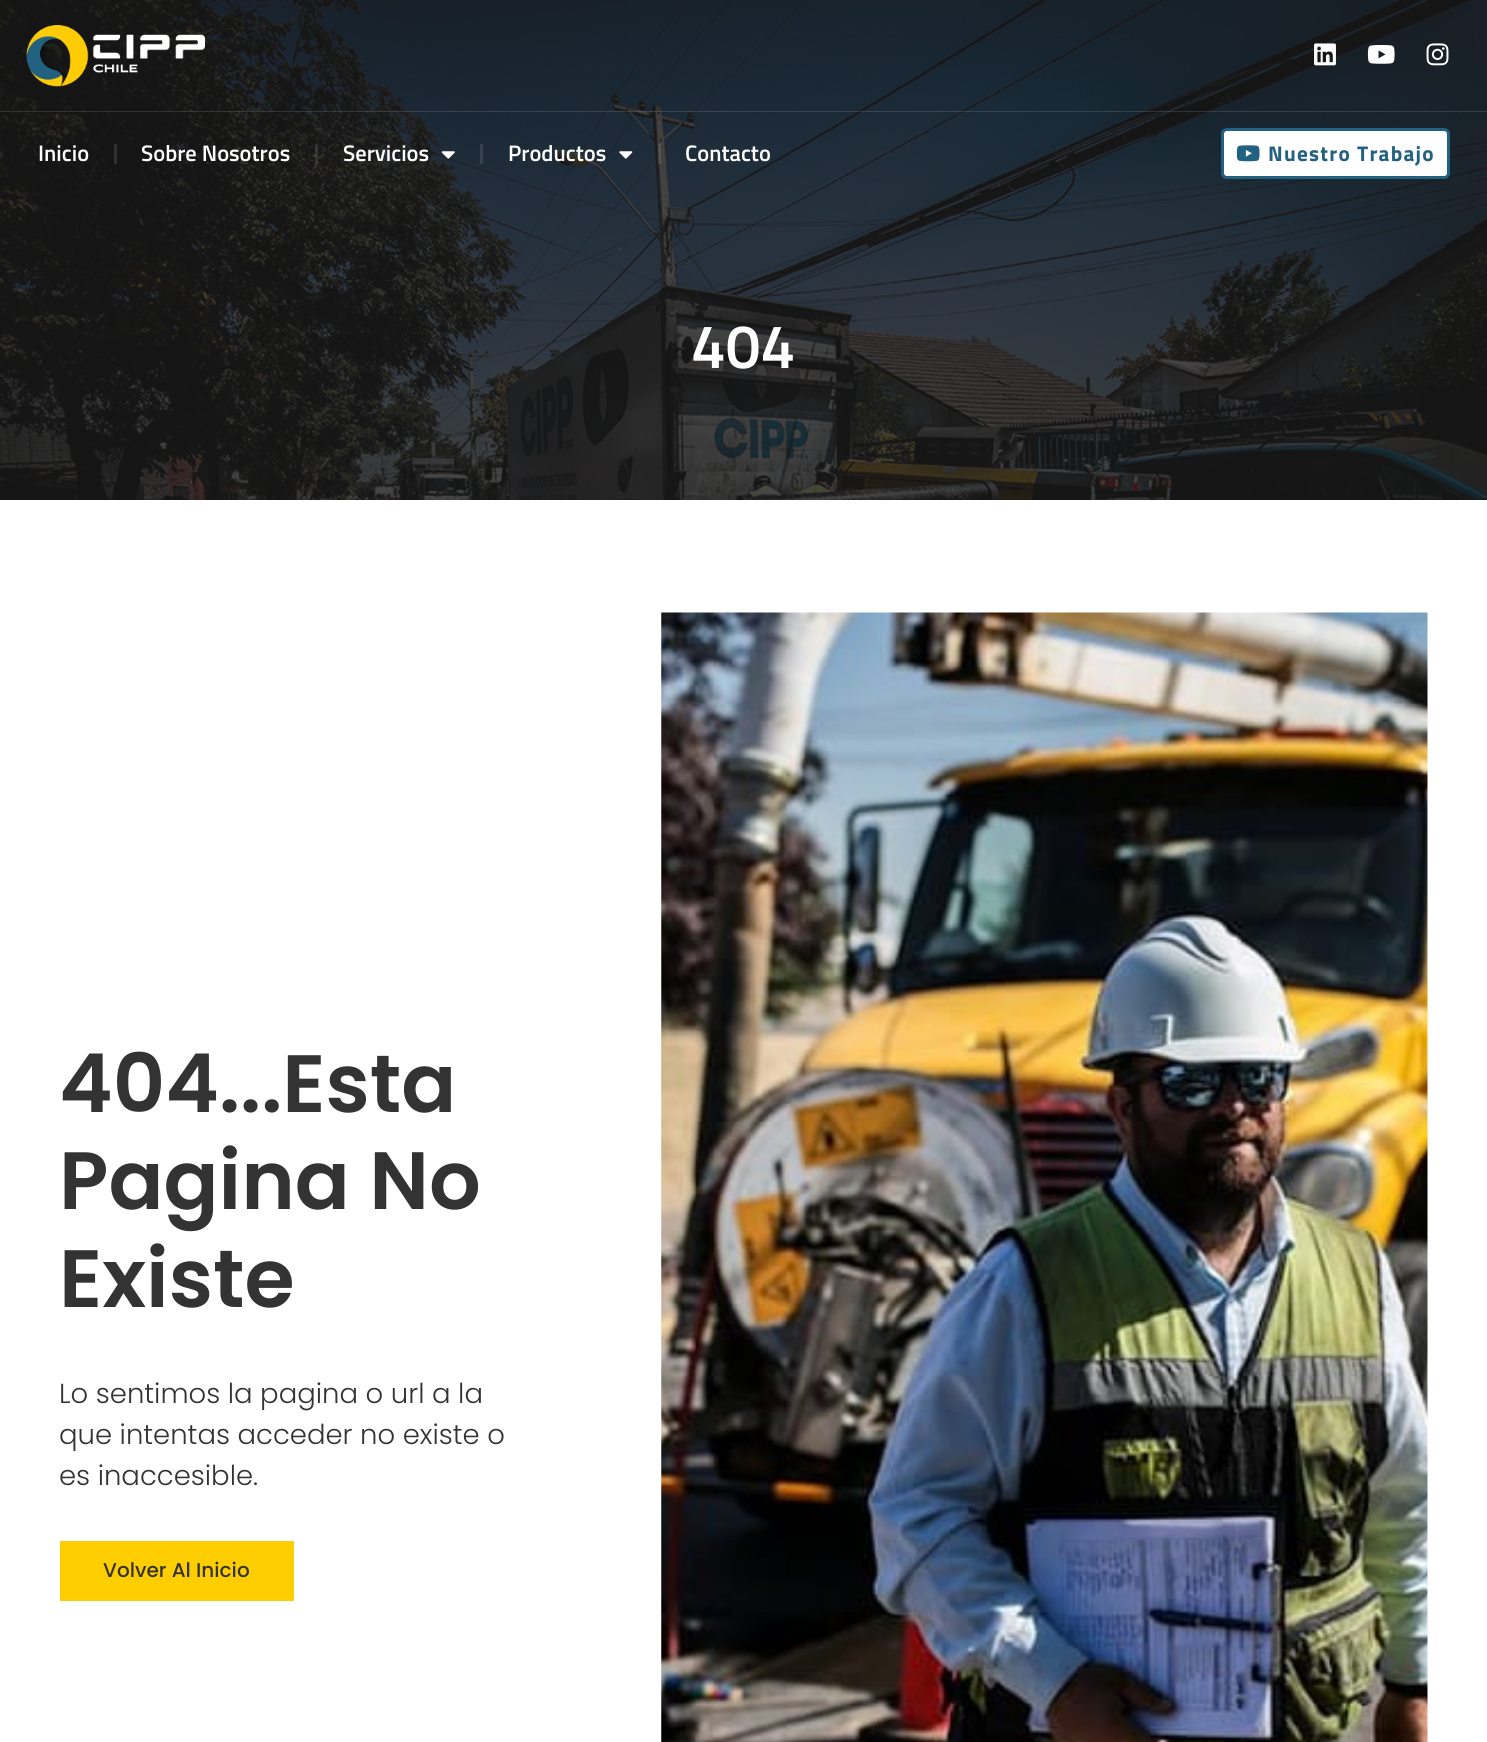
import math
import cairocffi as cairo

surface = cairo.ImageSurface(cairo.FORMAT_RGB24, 1487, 1742)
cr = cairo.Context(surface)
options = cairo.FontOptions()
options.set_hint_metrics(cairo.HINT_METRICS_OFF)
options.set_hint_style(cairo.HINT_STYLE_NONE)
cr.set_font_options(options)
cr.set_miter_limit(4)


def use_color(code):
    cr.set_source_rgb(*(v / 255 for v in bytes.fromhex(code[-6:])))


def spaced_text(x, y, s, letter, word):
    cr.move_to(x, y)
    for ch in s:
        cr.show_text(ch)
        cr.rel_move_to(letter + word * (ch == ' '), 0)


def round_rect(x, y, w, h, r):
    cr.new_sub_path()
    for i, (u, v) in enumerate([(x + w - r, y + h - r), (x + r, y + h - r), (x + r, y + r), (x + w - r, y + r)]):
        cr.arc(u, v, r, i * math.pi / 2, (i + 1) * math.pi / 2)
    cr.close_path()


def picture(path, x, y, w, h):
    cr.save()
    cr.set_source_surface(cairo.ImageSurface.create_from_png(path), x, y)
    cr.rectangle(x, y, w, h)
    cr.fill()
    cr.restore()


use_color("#ffffff")
cr.paint()
picture("img8.png", 0, 0, 1487, 500)
cr.set_source_rgba(0.902, 0.902, 0.902, 0.14)
cr.rectangle(0, 111, 1487, 1)
cr.fill()
picture("img1.png", 26, 25, 179, 62)
picture("img2.png", 1314, 43, 22, 23)
picture("img3.png", 1367, 45, 28, 19)
picture("img4.png", 1426, 43, 23, 23)
cr.select_font_face("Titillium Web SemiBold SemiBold")
cr.set_font_size(22.5)
use_color("#ffffff")
cr.move_to(38, 161)
cr.show_text("Inicio")
use_color("#2f2f2f")
cr.rectangle(114, 144, 3, 20)
cr.fill()
use_color("#ffffff")
cr.move_to(141, 161)
cr.show_text("Sobre Nosotros")
cr.set_source_rgba(0.914, 0.914, 0.914, 0.12)
cr.rectangle(315, 144, 3, 20)
cr.fill()
use_color("#ffffff")
cr.move_to(343, 161)
cr.show_text("Servicios")
picture("img5.png", 441, 151, 14, 8)
cr.set_source_rgba(0.914, 0.914, 0.914, 0.12)
cr.rectangle(480, 144, 3, 20)
cr.fill()
use_color("#ffffff")
cr.move_to(508, 161)
cr.show_text("Productos")
picture("img6.png", 619, 151, 14, 8)
cr.set_source_rgba(0.914, 0.914, 0.914, 0.12)
cr.rectangle(658, 144, 3, 20)
cr.fill()
use_color("#ffffff")
cr.move_to(685, 161)
cr.show_text("Contacto")
round_rect(1222.5, 129.5, 226, 48, 4.5)
cr.fill_preserve()
use_color("#226280")
cr.set_line_width(3)
cr.stroke()
picture("img7.png", 1236, 145, 24, 17)
cr.select_font_face("Titillium Web", cairo.FONT_SLANT_NORMAL, cairo.FONT_WEIGHT_BOLD)
cr.set_font_size(21.25)
spaced_text(1268, 161, "Nuestro Trabajo", 1.25, 0)
cr.select_font_face("Titillium Web SemiBold SemiBold")
cr.set_font_size(62)
use_color("#ffffff")
cr.move_to(691, 368)
cr.show_text("404")
cr.select_font_face("Poppins SemiBold")
cr.set_font_size(81.25)
use_color("#333333")
cr.move_to(59, 1112)
cr.show_text("404...Esta")
cr.move_to(59, 1209)
cr.show_text("Pagina No")
cr.move_to(59, 1307)
cr.show_text("Existe")
cr.select_font_face("Poppins Light")
cr.set_font_size(27.5)
cr.move_to(59, 1403)
cr.show_text("Lo sentimos la pagina o url a la")
cr.move_to(59, 1444)
cr.show_text("que intentas acceder no existe o")
cr.move_to(59, 1485)
cr.show_text("es inaccesible.")
use_color("#ffce01")
cr.rectangle(60, 1541, 234, 60)
cr.fill()
cr.select_font_face("Poppins Medium")
cr.set_font_size(20)
use_color("#333333")
cr.move_to(103, 1577)
cr.show_text("Volver Al Inicio")
picture("img9.png", 661, 612, 767, 1130)
surface.write_to_png("result.png")
